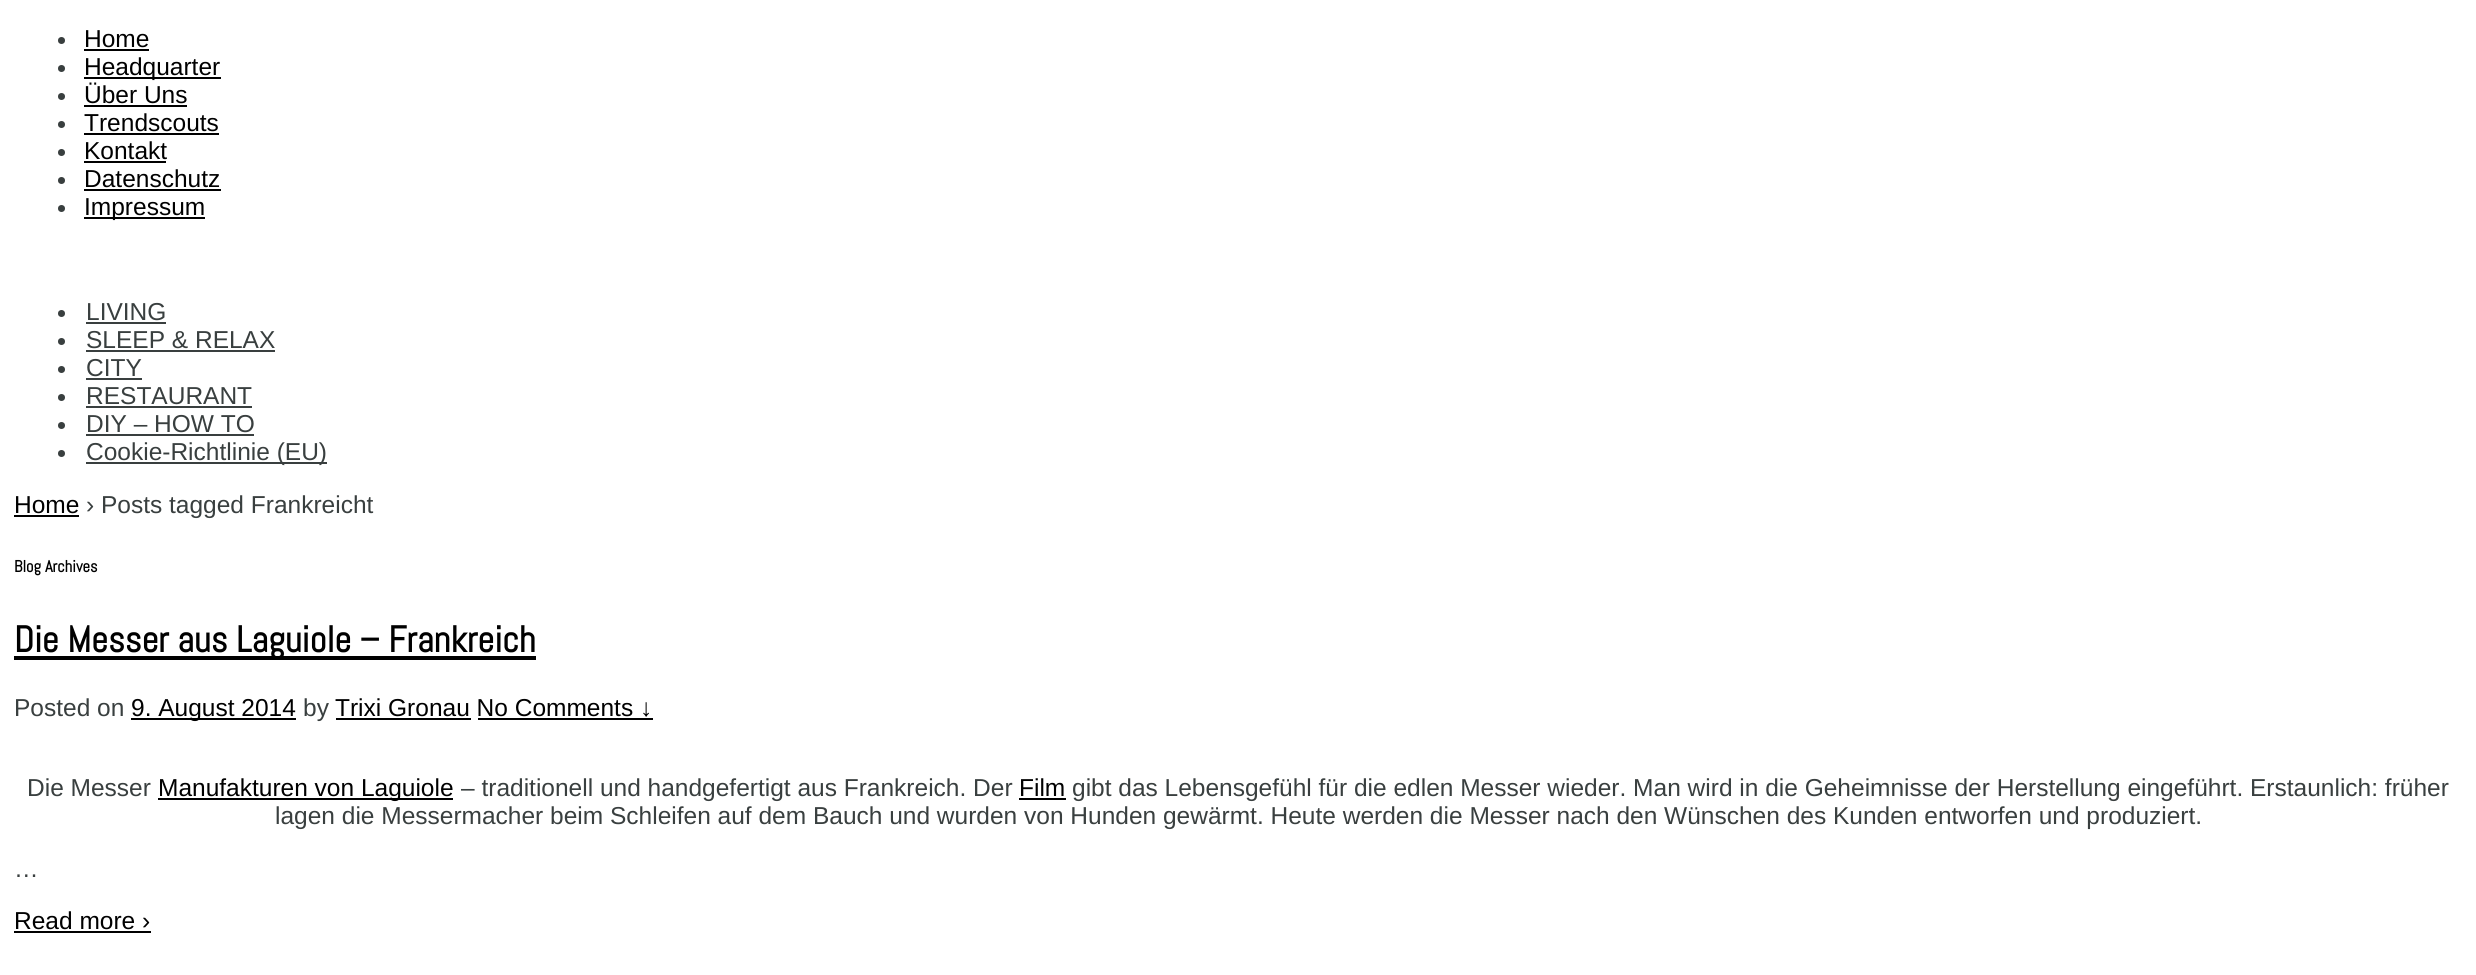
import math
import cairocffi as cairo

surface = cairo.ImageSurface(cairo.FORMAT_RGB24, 2476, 975)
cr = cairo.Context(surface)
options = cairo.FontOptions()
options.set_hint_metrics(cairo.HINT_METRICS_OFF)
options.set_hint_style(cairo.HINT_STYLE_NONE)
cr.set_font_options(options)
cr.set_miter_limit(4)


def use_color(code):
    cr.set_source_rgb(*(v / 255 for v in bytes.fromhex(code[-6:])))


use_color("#ffffff")
cr.paint()
use_color("#393f3f")
cr.arc(61.5, 40.5, 3.5, 0, 2 * math.pi)
cr.fill()
cr.select_font_face("Liberation Sans")
cr.set_font_size(24.5)
use_color("#000000")
cr.move_to(84, 47)
cr.show_text("Home")
cr.rectangle(84, 49, 65, 2)
cr.fill()
use_color("#393f3f")
cr.arc(61.5, 68.5, 3.5, 0, 2 * math.pi)
cr.fill()
use_color("#000000")
cr.rectangle(84, 77, 137, 2)
cr.fill()
cr.move_to(84, 75)
cr.show_text("Headquarter")
use_color("#393f3f")
cr.new_path()
cr.arc(61.5, 96.5, 3.5, 0, 2 * math.pi)
cr.fill()
use_color("#000000")
cr.move_to(84, 103)
cr.show_text("Über Uns")
cr.rectangle(84, 105, 103, 2)
cr.fill()
use_color("#393f3f")
cr.arc(61.5, 124.5, 3.5, 0, 2 * math.pi)
cr.fill()
use_color("#000000")
cr.move_to(84, 131)
cr.show_text("Trendscouts")
cr.rectangle(84, 133, 135, 2)
cr.fill()
use_color("#393f3f")
cr.arc(61.5, 152.5, 3.5, 0, 2 * math.pi)
cr.fill()
use_color("#000000")
cr.move_to(84, 159)
cr.show_text("Kontakt")
cr.rectangle(84, 161, 82, 2)
cr.fill()
use_color("#393f3f")
cr.arc(61.5, 180.5, 3.5, 0, 2 * math.pi)
cr.fill()
use_color("#000000")
cr.move_to(84, 187)
cr.show_text("Datenschutz")
cr.rectangle(84, 189, 137, 2)
cr.fill()
use_color("#393f3f")
cr.arc(61.5, 208.5, 3.5, 0, 2 * math.pi)
cr.fill()
use_color("#000000")
cr.rectangle(84, 217, 121, 2)
cr.fill()
cr.move_to(84, 215)
cr.show_text("Impressum")
use_color("#393f3f")
cr.new_path()
cr.arc(61.5, 313.5, 3.5, 0, 2 * math.pi)
cr.fill()
cr.move_to(86, 320)
cr.show_text("LIVING")
cr.rectangle(86, 322, 80, 2)
cr.fill()
cr.arc(61.5, 341.5, 3.5, 0, 2 * math.pi)
cr.fill()
cr.move_to(86, 348)
cr.show_text("SLEEP & RELAX")
cr.rectangle(86, 350, 189, 2)
cr.fill()
cr.arc(61.5, 369.5, 3.5, 0, 2 * math.pi)
cr.fill()
cr.move_to(86, 376)
cr.show_text("CITY")
cr.rectangle(86, 378, 56, 2)
cr.fill()
cr.arc(61.5, 397.5, 3.5, 0, 2 * math.pi)
cr.fill()
cr.move_to(86, 404)
cr.show_text("RESTAURANT")
cr.rectangle(86, 406, 166, 2)
cr.fill()
cr.arc(61.5, 425.5, 3.5, 0, 2 * math.pi)
cr.fill()
cr.move_to(86, 432)
cr.show_text("DIY – HOW TO")
cr.rectangle(86, 434, 168, 2)
cr.fill()
cr.arc(61.5, 453.5, 3.5, 0, 2 * math.pi)
cr.fill()
cr.rectangle(86, 462, 241, 2)
cr.fill()
cr.move_to(86, 460)
cr.show_text("Cookie-Richtlinie (EU)")
use_color("#000000")
cr.move_to(14, 513)
cr.show_text("Home")
cr.rectangle(14, 515, 65, 2)
cr.fill()
use_color("#393f3f")
cr.move_to(86, 513)
cr.show_text("› Posts tagged Frankreicht")
cr.select_font_face("Abel", cairo.FONT_SLANT_NORMAL, cairo.FONT_WEIGHT_BOLD)
cr.set_font_size(16.5)
use_color("#000000")
cr.move_to(14, 572)
cr.show_text("Blog Archives")
cr.rectangle(14, 656, 522, 4)
cr.fill()
cr.set_font_size(36.75)
cr.move_to(14, 652)
cr.show_text("Die Messer aus Laguiole – Frankreich")
cr.select_font_face("Liberation Sans")
cr.set_font_size(24.5)
use_color("#393f3f")
cr.move_to(14, 716)
cr.show_text("Posted on")
use_color("#000000")
cr.rectangle(131, 718, 165, 2)
cr.fill()
cr.move_to(131, 716)
cr.show_text("9. August 2014")
use_color("#393f3f")
cr.move_to(303, 716)
cr.show_text("by")
use_color("#000000")
cr.move_to(335, 716)
cr.show_text("Trixi Gronau No Comments ↓")
cr.rectangle(336, 718, 135, 2)
cr.fill()
cr.rectangle(478, 718, 175, 2)
cr.fill()
use_color("#393f3f")
cr.move_to(27, 796)
cr.show_text("Die Messer")
use_color("#000000")
cr.rectangle(158, 798, 295, 2)
cr.fill()
cr.move_to(158, 796)
cr.show_text("Manufakturen von Laguiole")
use_color("#393f3f")
cr.move_to(461, 796)
cr.show_text("– traditionell und handgefertigt aus Frankreich. Der")
use_color("#000000")
cr.move_to(1019, 796)
cr.show_text("Film")
cr.rectangle(1019, 798, 47, 2)
cr.fill()
use_color("#393f3f")
cr.move_to(1072, 796)
cr.show_text("gibt das Lebensgefühl für die edlen Messer wieder. Man wird in die Geheimnisse der Herstellung eingeführt. Erstaunlich: früher")
cr.move_to(275, 824)
cr.show_text("lagen die Messermacher beim Schleifen auf dem Bauch und wurden von Hunden gewärmt. Heute werden die Messer nach den Wünschen des Kunden entworfen und produziert.")
cr.move_to(14, 877)
cr.show_text("…")
use_color("#000000")
cr.move_to(14, 929)
cr.show_text("Read more ›")
cr.rectangle(14, 931, 137, 2)
cr.fill()
surface.write_to_png("result.png")
